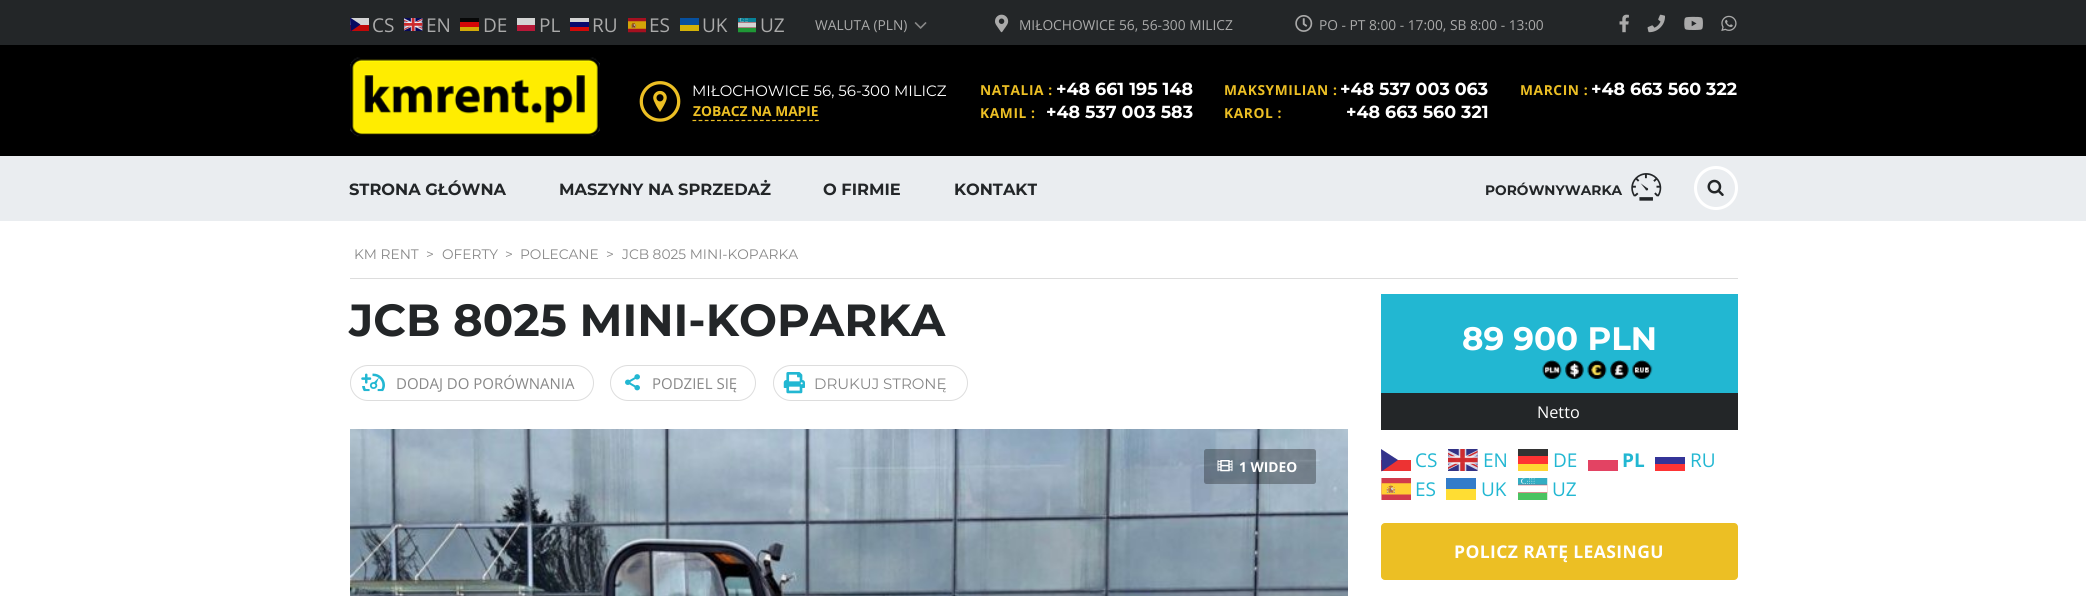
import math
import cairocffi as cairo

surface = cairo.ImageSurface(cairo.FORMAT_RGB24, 2086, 596)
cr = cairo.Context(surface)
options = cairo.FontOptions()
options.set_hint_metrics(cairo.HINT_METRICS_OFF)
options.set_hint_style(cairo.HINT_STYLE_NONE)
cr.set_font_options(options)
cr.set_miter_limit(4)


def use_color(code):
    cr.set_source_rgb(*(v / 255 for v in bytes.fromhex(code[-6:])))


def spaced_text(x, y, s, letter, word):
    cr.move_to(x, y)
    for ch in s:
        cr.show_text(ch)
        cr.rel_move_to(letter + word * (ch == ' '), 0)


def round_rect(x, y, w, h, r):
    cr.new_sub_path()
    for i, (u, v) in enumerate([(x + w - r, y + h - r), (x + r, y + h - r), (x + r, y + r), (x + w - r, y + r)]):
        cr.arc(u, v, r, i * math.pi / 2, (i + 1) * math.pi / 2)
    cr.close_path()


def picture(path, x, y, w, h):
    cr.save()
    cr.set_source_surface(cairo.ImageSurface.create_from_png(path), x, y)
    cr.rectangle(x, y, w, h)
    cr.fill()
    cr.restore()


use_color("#ffffff")
cr.paint()
use_color("#232628")
cr.rectangle(0, 0, 2086, 45)
cr.fill()
cr.select_font_face("Open Sans")
cr.set_font_size(19)
use_color("#aaaaaa")
cr.move_to(372, 32)
cr.show_text("CS")
use_color("#c10808")
cr.rectangle(350, 25, 19, 6)
cr.fill()
use_color("#d3d4d4")
cr.rectangle(350, 18, 19, 7)
cr.fill()
use_color("#070861")
cr.new_path()
cr.move_to(350, 17.5)
cr.line_to(360.5, 24.5)
cr.line_to(350.5, 31.5)
cr.close_path()
cr.fill()
picture("img1.png", 404, 18, 19, 13)
use_color("#aaaaaa")
cr.move_to(426, 32)
cr.show_text("EN")
cr.move_to(483, 32)
cr.show_text("DE")
use_color("#d3ab08")
cr.rectangle(460, 27, 19, 4)
cr.fill()
use_color("#070808")
cr.rectangle(460, 18, 19, 4)
cr.fill()
use_color("#d30808")
cr.rectangle(460, 22, 19, 5)
cr.fill()
use_color("#aaaaaa")
cr.move_to(539, 32)
cr.show_text("PL")
use_color("#d3d4d4")
cr.rectangle(517, 18, 18, 7)
cr.fill()
use_color("#b71838")
cr.rectangle(517, 25, 18, 6)
cr.fill()
use_color("#aaaaaa")
cr.move_to(592, 32)
cr.show_text("RU")
use_color("#d3d4d4")
cr.rectangle(570, 18, 19, 4)
cr.fill()
use_color("#08086d")
cr.rectangle(570, 22, 19, 5)
cr.fill()
use_color("#d20809")
cr.rectangle(570, 27, 19, 4)
cr.fill()
picture("img2.png", 628, 18, 18, 15)
use_color("#aaaaaa")
cr.move_to(649, 32)
cr.show_text("ES")
cr.move_to(702, 32)
cr.show_text("UK")
use_color("#d3b208")
cr.rectangle(680, 25, 19, 6)
cr.fill()
use_color("#07509e")
cr.rectangle(680, 18, 19, 7)
cr.fill()
picture("img3.png", 738, 18, 18, 15)
use_color("#aaaaaa")
cr.move_to(760, 32)
cr.show_text("UZ")
cr.set_font_size(13.75)
cr.move_to(815, 30)
cr.show_text("WALUTA (PLN)")
picture("img4.png", 914, 22, 13, 7)
picture("img5.png", 995, 14, 14, 19)
cr.move_to(1019, 30)
cr.show_text("MIŁOCHOWICE 56, 56-300 MILICZ")
picture("img6.png", 1295, 15, 18, 17)
cr.move_to(1319, 30)
cr.show_text("PO - PT 8:00 - 17:00, SB 8:00 - 13:00")
picture("img7.png", 1619, 14, 10, 19)
picture("img8.png", 1647, 14, 18, 19)
picture("img9.png", 1684, 16, 19, 14)
picture("img10.png", 1721, 15, 16, 16)
use_color("#000000")
cr.rectangle(0, 45, 2086, 111)
cr.fill()
picture("img11.png", 350, 57, 250, 80)
picture("img12.png", 639, 81, 42, 41)
cr.select_font_face("Montserrat")
cr.set_font_size(15)
use_color("#ffffff")
cr.move_to(692, 96)
cr.show_text("MIŁOCHOWICE 56, 56-300 MILICZ")
cr.select_font_face("Open Sans", cairo.FONT_SLANT_NORMAL, cairo.FONT_WEIGHT_BOLD)
cr.set_font_size(13.75)
use_color("#ecbf24")
cr.move_to(693, 116)
cr.show_text("ZOBACZ NA MAPIE")
cr.new_path()
cr.move_to(692.5, 120.5)
cr.line_to(819, 120.5)
cr.set_line_width(1.2)
cr.set_dash([3.75, 2.38])
cr.stroke()
spaced_text(980, 95, "NATALIA :", 0.6, 0)
cr.select_font_face("Montserrat", cairo.FONT_SLANT_NORMAL, cairo.FONT_WEIGHT_BOLD)
cr.set_font_size(17.5)
use_color("#ffffff")
cr.move_to(1056, 95)
cr.show_text("+48 661 195 148")
cr.select_font_face("Open Sans", cairo.FONT_SLANT_NORMAL, cairo.FONT_WEIGHT_BOLD)
cr.set_font_size(13.75)
use_color("#ecbf24")
spaced_text(980, 118, "KAMIL :", 0.6, 0)
cr.select_font_face("Montserrat", cairo.FONT_SLANT_NORMAL, cairo.FONT_WEIGHT_BOLD)
cr.set_font_size(17.5)
use_color("#ffffff")
cr.move_to(1046, 118)
cr.show_text("+48 537 003 583")
cr.select_font_face("Open Sans", cairo.FONT_SLANT_NORMAL, cairo.FONT_WEIGHT_BOLD)
cr.set_font_size(13.75)
use_color("#ecbf24")
spaced_text(1224, 95, "MAKSYMILIAN :", 0.6, 0)
cr.select_font_face("Montserrat", cairo.FONT_SLANT_NORMAL, cairo.FONT_WEIGHT_BOLD)
cr.set_font_size(17.5)
use_color("#ffffff")
cr.move_to(1340, 95)
cr.show_text("+48 537 003 063")
cr.select_font_face("Open Sans", cairo.FONT_SLANT_NORMAL, cairo.FONT_WEIGHT_BOLD)
cr.set_font_size(13.75)
use_color("#ecbf24")
spaced_text(1224, 118, "KAROL :", 0.6, 0)
cr.select_font_face("Montserrat", cairo.FONT_SLANT_NORMAL, cairo.FONT_WEIGHT_BOLD)
cr.set_font_size(17.5)
use_color("#ffffff")
cr.move_to(1346, 118)
cr.show_text("+48 663 560 321")
cr.select_font_face("Open Sans", cairo.FONT_SLANT_NORMAL, cairo.FONT_WEIGHT_BOLD)
cr.set_font_size(13.75)
use_color("#ecbf24")
spaced_text(1520, 95, "MARCIN :", 0.6, 0)
cr.select_font_face("Montserrat", cairo.FONT_SLANT_NORMAL, cairo.FONT_WEIGHT_BOLD)
cr.set_font_size(17.5)
use_color("#ffffff")
cr.move_to(1591, 95)
cr.show_text("+48 663 560 322")
use_color("#eaedf0")
cr.rectangle(0, 156, 2086, 65)
cr.fill()
cr.set_font_size(16.25)
use_color("#232628")
cr.move_to(349, 195)
cr.show_text("STRONA GŁÓWNA")
cr.move_to(559, 195)
cr.show_text("MASZYNY NA SPRZEDAŻ")
cr.move_to(823, 195)
cr.show_text("O FIRMIE")
cr.move_to(954, 195)
cr.show_text("KONTAKT")
cr.set_font_size(13.75)
cr.move_to(1485, 195)
cr.show_text("PORÓWNYWARKA")
picture("img13.png", 1631, 173, 31, 28)
cr.arc(1716, 188, 20.5, 0, 2 * math.pi)
use_color("#ffffff")
cr.set_line_width(3)
cr.set_dash([])
cr.stroke()
picture("img14.png", 1707, 179, 17, 17)
use_color("#dddddd")
cr.rectangle(350, 278, 1388, 1)
cr.fill()
cr.select_font_face("Montserrat")
use_color("#888888")
cr.move_to(354, 259)
cr.show_text("KM RENT")
cr.move_to(426, 259)
cr.show_text(">")
cr.move_to(442, 259)
cr.show_text("OFERTY")
cr.move_to(505, 259)
cr.show_text(">")
cr.move_to(520, 259)
cr.show_text("POLECANE")
cr.move_to(606, 259)
cr.show_text(">")
cr.move_to(622, 259)
cr.show_text("JCB 8025 MINI-KOPARKA")
cr.select_font_face("Montserrat", cairo.FONT_SLANT_NORMAL, cairo.FONT_WEIGHT_BOLD)
cr.set_font_size(45)
use_color("#232628")
cr.move_to(349, 336)
cr.show_text("JCB 8025 MINI-KOPARKA")
round_rect(350.5, 365.5, 243, 35, 17.5)
use_color("#dddddd")
cr.set_line_width(1)
cr.stroke()
picture("img15.png", 361, 373, 24, 19)
cr.select_font_face("Open Sans")
cr.set_font_size(15)
use_color("#888888")
cr.move_to(396, 389)
cr.show_text("DODAJ DO PORÓWNANIA")
round_rect(610.5, 365.5, 145, 35, 17.5)
use_color("#dddddd")
cr.stroke()
picture("img16.png", 625, 374, 15, 17)
use_color("#888888")
cr.move_to(652, 389)
cr.show_text("PODZIEL SIĘ")
round_rect(773.5, 365.5, 194, 35, 17.5)
use_color("#dddddd")
cr.stroke()
picture("img17.png", 783, 372, 22, 22)
cr.select_font_face("Montserrat")
use_color("#888888")
cr.move_to(814, 389)
cr.show_text("DRUKUJ STRONĘ")
picture("img18.png", 350, 429, 998, 167)
cr.set_source_rgba(0, 0, 0, 0.3)
round_rect(1204, 449, 112, 35, 2.5)
cr.fill()
picture("img19.png", 1217, 460, 16, 12)
cr.select_font_face("Open Sans", cairo.FONT_SLANT_NORMAL, cairo.FONT_WEIGHT_BOLD)
cr.set_font_size(13.75)
use_color("#ffffff")
cr.move_to(1239, 472)
cr.show_text("1 WIDEO")
use_color("#22b7d2")
cr.rectangle(1381, 294, 357, 99)
cr.fill()
cr.select_font_face("Montserrat", cairo.FONT_SLANT_NORMAL, cairo.FONT_WEIGHT_BOLD)
cr.set_font_size(32.5)
use_color("#ffffff")
cr.move_to(1462, 350)
cr.show_text("89 900 PLN")
picture("img20.png", 1542, 360, 20, 19)
picture("img21.png", 1565, 360, 19, 19)
picture("img22.png", 1587, 360, 20, 19)
picture("img23.png", 1610, 360, 19, 19)
picture("img24.png", 1632, 360, 21, 19)
use_color("#232628")
cr.rectangle(1381, 393, 357, 37)
cr.fill()
cr.select_font_face("Open Sans")
cr.set_font_size(16.25)
use_color("#ffffff")
cr.move_to(1537, 418)
cr.show_text("Netto")
cr.set_font_size(19)
use_color("#22b7d2")
cr.move_to(1415, 467)
cr.show_text("CS")
use_color("#ed3333")
cr.rectangle(1381, 460, 30, 11)
cr.fill()
use_color("#33338c")
cr.new_path()
cr.move_to(1381.5, 471.5)
cr.line_to(1381, 449)
cr.line_to(1398, 460)
cr.close_path()
cr.fill()
picture("img25.png", 1448, 449, 30, 22)
use_color("#22b7d2")
cr.move_to(1483, 467)
cr.show_text("EN")
cr.move_to(1553, 467)
cr.show_text("DE")
use_color("#ffd633")
cr.rectangle(1518, 464, 30, 7)
cr.fill()
use_color("#333333")
cr.rectangle(1518, 449, 30, 7)
cr.fill()
use_color("#ff3333")
cr.rectangle(1518, 456, 30, 8)
cr.fill()
cr.select_font_face("Open Sans", cairo.FONT_SLANT_NORMAL, cairo.FONT_WEIGHT_BOLD)
use_color("#22b7d2")
cr.move_to(1622, 467)
cr.show_text("PL")
use_color("#e34363")
cr.rectangle(1588, 460, 30, 11)
cr.fill()
cr.select_font_face("Open Sans")
use_color("#22b7d2")
cr.move_to(1690, 467)
cr.show_text("RU")
use_color("#343498")
cr.rectangle(1655, 457, 30, 7)
cr.fill()
use_color("#fe3434")
cr.rectangle(1655, 464, 30, 7)
cr.fill()
picture("img26.png", 1381, 478, 30, 22)
use_color("#22b7d2")
cr.move_to(1415, 496)
cr.show_text("ES")
cr.move_to(1481, 496)
cr.show_text("UK")
use_color("#ffdd33")
cr.rectangle(1446, 489, 30, 11)
cr.fill()
use_color("#337cc9")
cr.rectangle(1446, 478, 30, 11)
cr.fill()
picture("img27.png", 1518, 478, 30, 22)
use_color("#22b7d2")
cr.move_to(1552, 496)
cr.show_text("UZ")
use_color("#ecbf24")
round_rect(1381, 523, 357, 57, 4)
cr.fill()
cr.select_font_face("Open Sans", cairo.FONT_SLANT_NORMAL, cairo.FONT_WEIGHT_BOLD)
cr.set_font_size(17.5)
use_color("#ffffff")
spaced_text(1454, 558, "POLICZ RATĘ LEASINGU", 0.4, 0)
surface.write_to_png("result.png")
